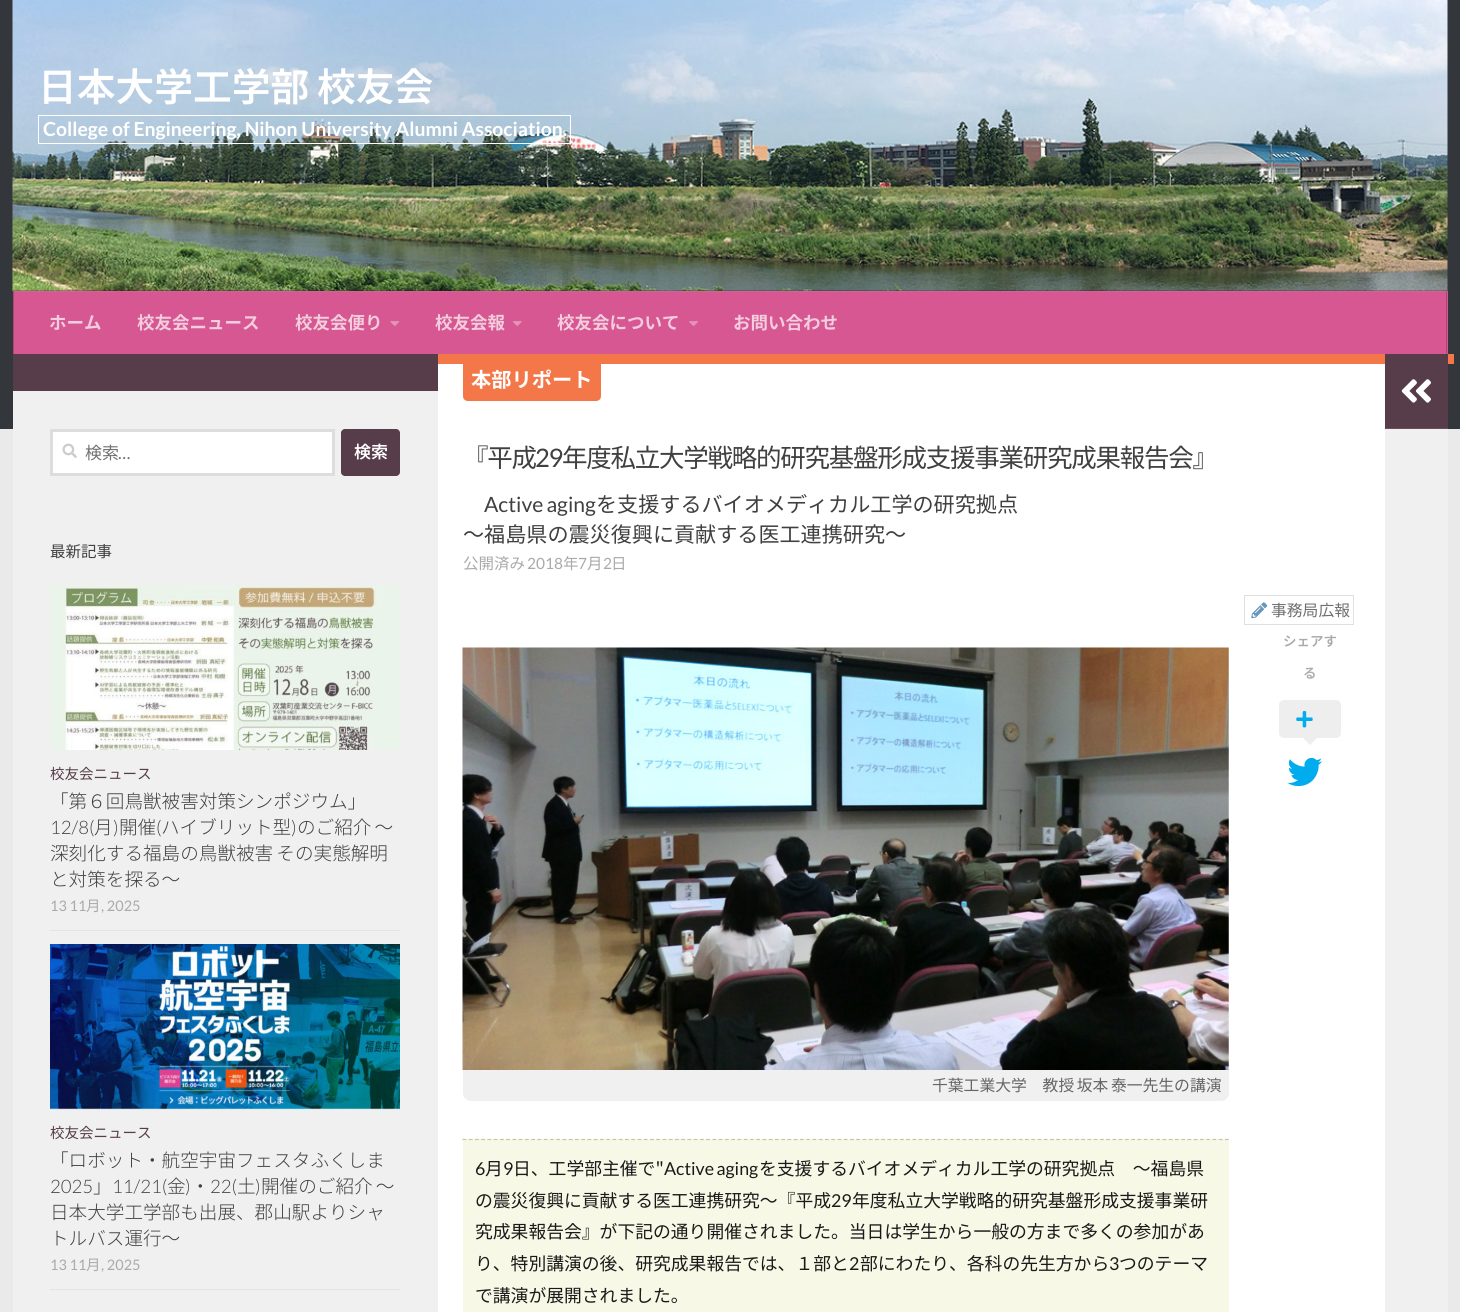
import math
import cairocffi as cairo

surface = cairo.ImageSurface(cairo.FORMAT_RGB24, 1460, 1312)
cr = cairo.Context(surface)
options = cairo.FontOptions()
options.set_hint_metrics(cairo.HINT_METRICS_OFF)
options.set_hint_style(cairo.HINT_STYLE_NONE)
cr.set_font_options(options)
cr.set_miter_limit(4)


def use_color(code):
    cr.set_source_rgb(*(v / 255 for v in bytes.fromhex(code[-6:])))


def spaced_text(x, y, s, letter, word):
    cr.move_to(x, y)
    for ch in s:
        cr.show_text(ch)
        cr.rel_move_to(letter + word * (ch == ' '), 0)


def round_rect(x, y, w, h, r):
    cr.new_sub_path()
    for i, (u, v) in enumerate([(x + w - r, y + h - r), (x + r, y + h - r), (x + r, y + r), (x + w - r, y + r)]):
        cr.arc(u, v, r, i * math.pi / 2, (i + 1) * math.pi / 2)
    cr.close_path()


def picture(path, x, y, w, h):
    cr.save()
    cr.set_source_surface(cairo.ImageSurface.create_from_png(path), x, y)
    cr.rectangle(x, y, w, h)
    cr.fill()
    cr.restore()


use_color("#eaeaea")
cr.paint()
use_color("#33363b")
cr.rectangle(0, 0, 1460, 429)
cr.fill()
picture("img1.png", 12, 0, 1436, 292)
cr.select_font_face("Noto Sans JP SemiBold")
cr.set_font_size(38.75)
use_color("#ffffff")
spaced_text(38, 101, "日本大学工学部 校友会", 0, -1)
cr.rectangle(38.5, 115.5, 532, 28)
cr.set_line_width(1)
cr.stroke()
cr.select_font_face("Lato", cairo.FONT_SLANT_NORMAL, cairo.FONT_WEIGHT_BOLD)
cr.set_font_size(19.35)
cr.move_to(43, 136)
cr.show_text("College of Engineering, Nihon University Alumni Association.")
cr.set_source_rgba(0, 0, 0, 0.2)
cr.new_path()
cr.move_to(13, 290)
cr.line_to(13, 291)
cr.line_to(1448, 291)
cr.line_to(1448, 353)
cr.line_to(1448, 290)
cr.close_path()
cr.fill()
use_color("#d65792")
cr.rectangle(14, 291, 1434, 63)
cr.fill()
use_color("#ab4675")
cr.rectangle(1446, 291, 1, 63)
cr.fill()
cr.rectangle(13, 291, 1, 63)
cr.fill()
cr.set_source_rgba(1, 1, 1, 0.05)
cr.rectangle(13, 291, 1435, 1)
cr.fill()
cr.select_font_face("Noto Sans JP", cairo.FONT_SLANT_NORMAL, cairo.FONT_WEIGHT_BOLD)
cr.set_font_size(17.5)
use_color("#f3cdde")
cr.move_to(49, 329)
cr.show_text("ホーム")
cr.move_to(137, 329)
cr.show_text("校友会ニュース")
cr.move_to(295, 329)
cr.show_text("校友会便り")
picture("img2.png", 390, 321, 10, 5)
cr.move_to(435, 329)
cr.show_text("校友会報")
picture("img3.png", 512, 321, 10, 5)
cr.move_to(557, 329)
cr.show_text("校友会について")
picture("img4.png", 689, 321, 9, 5)
cr.move_to(733, 329)
cr.show_text("お問い合わせ")
use_color("#ffffff")
cr.rectangle(438, 364, 947, 948)
cr.fill()
use_color("#f0f0f0")
cr.rectangle(13, 391, 425, 921)
cr.fill()
use_color("#563d49")
cr.rectangle(13, 354, 425, 37)
cr.fill()
use_color("#ffffff")
cr.rectangle(51.5, 430.5, 282, 44)
cr.fill_preserve()
use_color("#dddddd")
cr.set_line_width(3)
cr.stroke()
picture("img5.png", 62, 443, 15, 15)
cr.select_font_face("Noto Sans JP")
cr.set_font_size(17)
use_color("#707070")
cr.move_to(85, 459)
cr.show_text("検索")
cr.select_font_face("Lato")
cr.move_to(118, 459)
cr.show_text("…")
use_color("#563d49")
round_rect(341, 429, 59, 47, 4)
cr.fill()
cr.select_font_face("Noto Sans JP SemiBold")
use_color("#ffffff")
cr.move_to(354, 458)
cr.show_text("検索")
cr.select_font_face("Noto Sans JP")
cr.set_font_size(15.5)
use_color("#404040")
cr.move_to(50, 557)
cr.show_text("最新記事")
use_color("#e4e4e4")
cr.rectangle(50, 930, 350, 1)
cr.fill()
picture("img6.png", 50, 585, 350, 165)
cr.set_font_size(14.5)
use_color("#563d49")
cr.move_to(50, 779)
cr.show_text("校友会ニュース")
cr.select_font_face("Noto Sans JP Light")
cr.set_font_size(18.6)
use_color("#404040")
cr.move_to(50, 808)
cr.show_text("「第６回鳥獣被害対策シンポジウム」")
cr.select_font_face("Lato Light")
cr.move_to(50, 834)
cr.show_text("12/8(")
cr.select_font_face("Noto Sans JP Light")
cr.move_to(94, 834)
cr.show_text("月")
cr.select_font_face("Lato Light")
cr.move_to(113, 834)
cr.show_text(")")
cr.select_font_face("Noto Sans JP Light")
cr.move_to(119, 834)
cr.show_text("開催")
cr.select_font_face("Lato Light")
cr.move_to(156, 834)
cr.show_text("(")
cr.select_font_face("Noto Sans JP Light")
cr.move_to(161, 834)
cr.show_text("ハイブリット型")
cr.select_font_face("Lato Light")
cr.move_to(291, 834)
cr.show_text(")")
cr.select_font_face("Noto Sans JP Light")
spaced_text(297, 834, "のご紹介 ～", 0, -1)
spaced_text(50, 860, "深刻化する福島の鳥獣被害 その実態解明", 0, -1)
cr.move_to(50, 886)
cr.show_text("と対策を探る～")
cr.select_font_face("Lato")
cr.set_font_size(14.5)
use_color("#aaaaaa")
cr.move_to(50, 911)
cr.show_text("13 11")
cr.select_font_face("Noto Sans JP")
cr.move_to(86, 911)
cr.show_text("月")
cr.select_font_face("Lato")
cr.move_to(101, 911)
cr.show_text(", 2025")
use_color("#e4e4e4")
cr.rectangle(50, 1289, 350, 1)
cr.fill()
picture("img7.png", 50, 944, 350, 166)
cr.select_font_face("Noto Sans JP")
use_color("#563d49")
cr.move_to(50, 1138)
cr.show_text("校友会ニュース")
cr.select_font_face("Noto Sans JP Light")
cr.set_font_size(18.6)
use_color("#404040")
cr.move_to(50, 1167)
cr.show_text("「ロボット・航空宇宙フェスタふくしま")
cr.select_font_face("Lato Light")
cr.move_to(50, 1193)
cr.show_text("2025")
cr.select_font_face("Noto Sans JP Light")
cr.move_to(93, 1193)
cr.show_text("」")
cr.select_font_face("Lato Light")
cr.move_to(112, 1193)
cr.show_text("11/21(")
cr.select_font_face("Noto Sans JP Light")
cr.move_to(167, 1193)
cr.show_text("金")
cr.select_font_face("Lato Light")
cr.move_to(185, 1193)
cr.show_text(")")
cr.select_font_face("Noto Sans JP Light")
cr.move_to(191, 1193)
cr.show_text("・")
cr.select_font_face("Lato Light")
cr.move_to(210, 1193)
cr.show_text("22(")
cr.select_font_face("Noto Sans JP Light")
cr.move_to(237, 1193)
cr.show_text("土")
cr.select_font_face("Lato Light")
cr.move_to(255, 1193)
cr.show_text(")")
cr.select_font_face("Noto Sans JP Light")
spaced_text(261, 1193, "開催のご紹介 ～", 0, -1)
cr.move_to(50, 1219)
cr.show_text("日本大学工学部も出展、郡山駅よりシャ")
cr.move_to(50, 1245)
cr.show_text("トルバス運行～")
cr.select_font_face("Lato")
cr.set_font_size(14.5)
use_color("#aaaaaa")
cr.move_to(50, 1270)
cr.show_text("13 11")
cr.select_font_face("Noto Sans JP")
cr.move_to(86, 1270)
cr.show_text("月")
cr.select_font_face("Lato")
cr.move_to(101, 1270)
cr.show_text(", 2025")
use_color("#f37748")
cr.rectangle(438, 354, 1016, 10)
cr.fill()
cr.new_path()
cr.move_to(463, 364)
cr.line_to(601, 364)
cr.line_to(601, 396)
cr.curve_to(601, 399, 599, 401, 596, 401)
cr.line_to(468, 401)
cr.curve_to(465, 401, 463, 399, 463, 396)
cr.close_path()
cr.fill()
cr.select_font_face("Noto Sans JP", cairo.FONT_SLANT_NORMAL, cairo.FONT_WEIGHT_BOLD)
cr.set_font_size(20.25)
use_color("#ffffff")
cr.move_to(471, 387)
cr.show_text("本部リポート")
cr.select_font_face("Noto Sans JP")
cr.set_font_size(25.5)
use_color("#404040")
spaced_text(463, 467, "『平成", -1.25, 0)
cr.select_font_face("Lato")
spaced_text(535, 467, "29", -1.25, 0)
cr.select_font_face("Noto Sans JP")
spaced_text(562, 467, "年度私立大学戦略的研究基盤形成支援事業研究成果報告会』", -1.25, 0)
cr.select_font_face("Lato")
cr.set_font_size(21.1)
spaced_text(484, 512, "Active aging", 0, -1)
cr.select_font_face("Noto Sans JP")
cr.move_to(596, 512)
cr.show_text("を支援するバイオメディカル工学の研究拠点")
cr.move_to(463, 542)
cr.show_text("～福島県の震災復興に貢献する医工連携研究～")
cr.set_font_size(15.5)
use_color("#aaaaaa")
cr.move_to(463, 569)
cr.show_text("公開済み")
cr.select_font_face("Lato")
cr.move_to(527, 569)
cr.show_text("2018")
cr.select_font_face("Noto Sans JP")
cr.move_to(563, 569)
cr.show_text("年")
cr.select_font_face("Lato")
cr.move_to(578, 569)
cr.show_text("7")
cr.select_font_face("Noto Sans JP")
cr.move_to(587, 569)
cr.show_text("月")
cr.select_font_face("Lato")
cr.move_to(603, 569)
cr.show_text("2")
cr.select_font_face("Noto Sans JP")
cr.move_to(611, 569)
cr.show_text("日")
cr.rectangle(1244.5, 595.5, 109, 29)
use_color("#e0e0e0")
cr.set_line_width(1)
cr.stroke()
picture("img8.png", 1251, 602, 17, 17)
cr.set_font_size(15.8)
use_color("#707070")
cr.move_to(1271, 616)
cr.show_text("事務局広報")
cr.select_font_face("Noto Sans JP SemiBold")
cr.set_font_size(13.5)
use_color("#aaaaaa")
cr.move_to(1283, 646)
cr.show_text("シェアす")
cr.move_to(1303, 678)
cr.show_text("る")
use_color("#eeeeee")
round_rect(1279, 700, 62, 38, 5)
cr.fill()
picture("img9.png", 1296, 711, 17, 17)
cr.new_path()
cr.move_to(1302.5, 737.5)
cr.line_to(1317.5, 737.5)
cr.line_to(1310, 745)
cr.close_path()
cr.fill()
picture("img10.png", 1287, 757, 35, 30)
picture("img11.png", 462, 647, 767, 423)
use_color("#f0f0f0")
cr.new_path()
cr.move_to(463, 1070)
cr.line_to(1229, 1070)
cr.line_to(1229, 1093)
cr.curve_to(1229, 1097.5, 1225.5, 1101, 1221, 1101)
cr.line_to(471, 1101)
cr.curve_to(466.5, 1101, 463, 1097.5, 463, 1093)
cr.close_path()
cr.fill()
cr.select_font_face("Noto Sans JP")
cr.set_font_size(15.8)
use_color("#666666")
spaced_text(932, 1091, "千葉工業大学　教授 坂本 泰一先生の講演", 0, -1)
use_color("#f8f8e7")
cr.rectangle(463, 1139, 766, 173)
cr.fill()
cr.new_path()
cr.move_to(462.5, 1139.5)
cr.line_to(1229, 1139.5)
use_color("#c6c5a7")
cr.set_line_width(1.2)
cr.set_dash([3.75, 2.5])
cr.stroke()
cr.select_font_face("Lato")
cr.set_font_size(17.8)
use_color("#1a1a1a")
cr.move_to(475, 1175)
cr.show_text("6")
cr.select_font_face("Noto Sans JP")
cr.move_to(485, 1175)
cr.show_text("月")
cr.select_font_face("Lato")
cr.move_to(503, 1175)
cr.show_text("9")
cr.select_font_face("Noto Sans JP")
cr.move_to(513, 1175)
cr.show_text("日、工学部主催で\"")
cr.select_font_face("Lato")
spaced_text(664, 1175, "Active aging", 0, -1)
cr.select_font_face("Noto Sans JP")
cr.move_to(759, 1175)
cr.show_text("を支援するバイオメディカル工学の研究拠点　～福島県")
cr.move_to(475, 1207)
cr.show_text("の震災復興に貢献する医工連携研究～『平成")
cr.select_font_face("Lato")
cr.move_to(831, 1207)
cr.show_text("29")
cr.select_font_face("Noto Sans JP")
cr.move_to(852, 1207)
cr.show_text("年度私立大学戦略的研究基盤形成支援事業研")
cr.move_to(475, 1238)
cr.show_text("究成果報告会』が下記の通り開催されました。当日は学生から一般の方まで多くの参加があ")
cr.move_to(475, 1270)
cr.show_text("り、特別講演の後、研究成果報告では、１部と")
cr.select_font_face("Lato")
cr.move_to(849, 1270)
cr.show_text("2")
cr.select_font_face("Noto Sans JP")
cr.move_to(860, 1270)
cr.show_text("部にわたり、各科の先生方から")
cr.select_font_face("Lato")
cr.move_to(1109, 1270)
cr.show_text("3")
cr.select_font_face("Noto Sans JP")
cr.move_to(1119, 1270)
cr.show_text("つのテーマ")
cr.move_to(475, 1302)
cr.show_text("で講演が展開されました。")
use_color("#563d49")
cr.rectangle(1385, 354, 63, 74)
cr.fill()
use_color("#67505b")
cr.rectangle(1385, 428, 63, 1)
cr.fill()
picture("img12.png", 1401, 379, 30, 24)
use_color("#f0f0f0")
cr.rectangle(1385, 429, 63, 883)
cr.fill()
surface.write_to_png("result.png")
